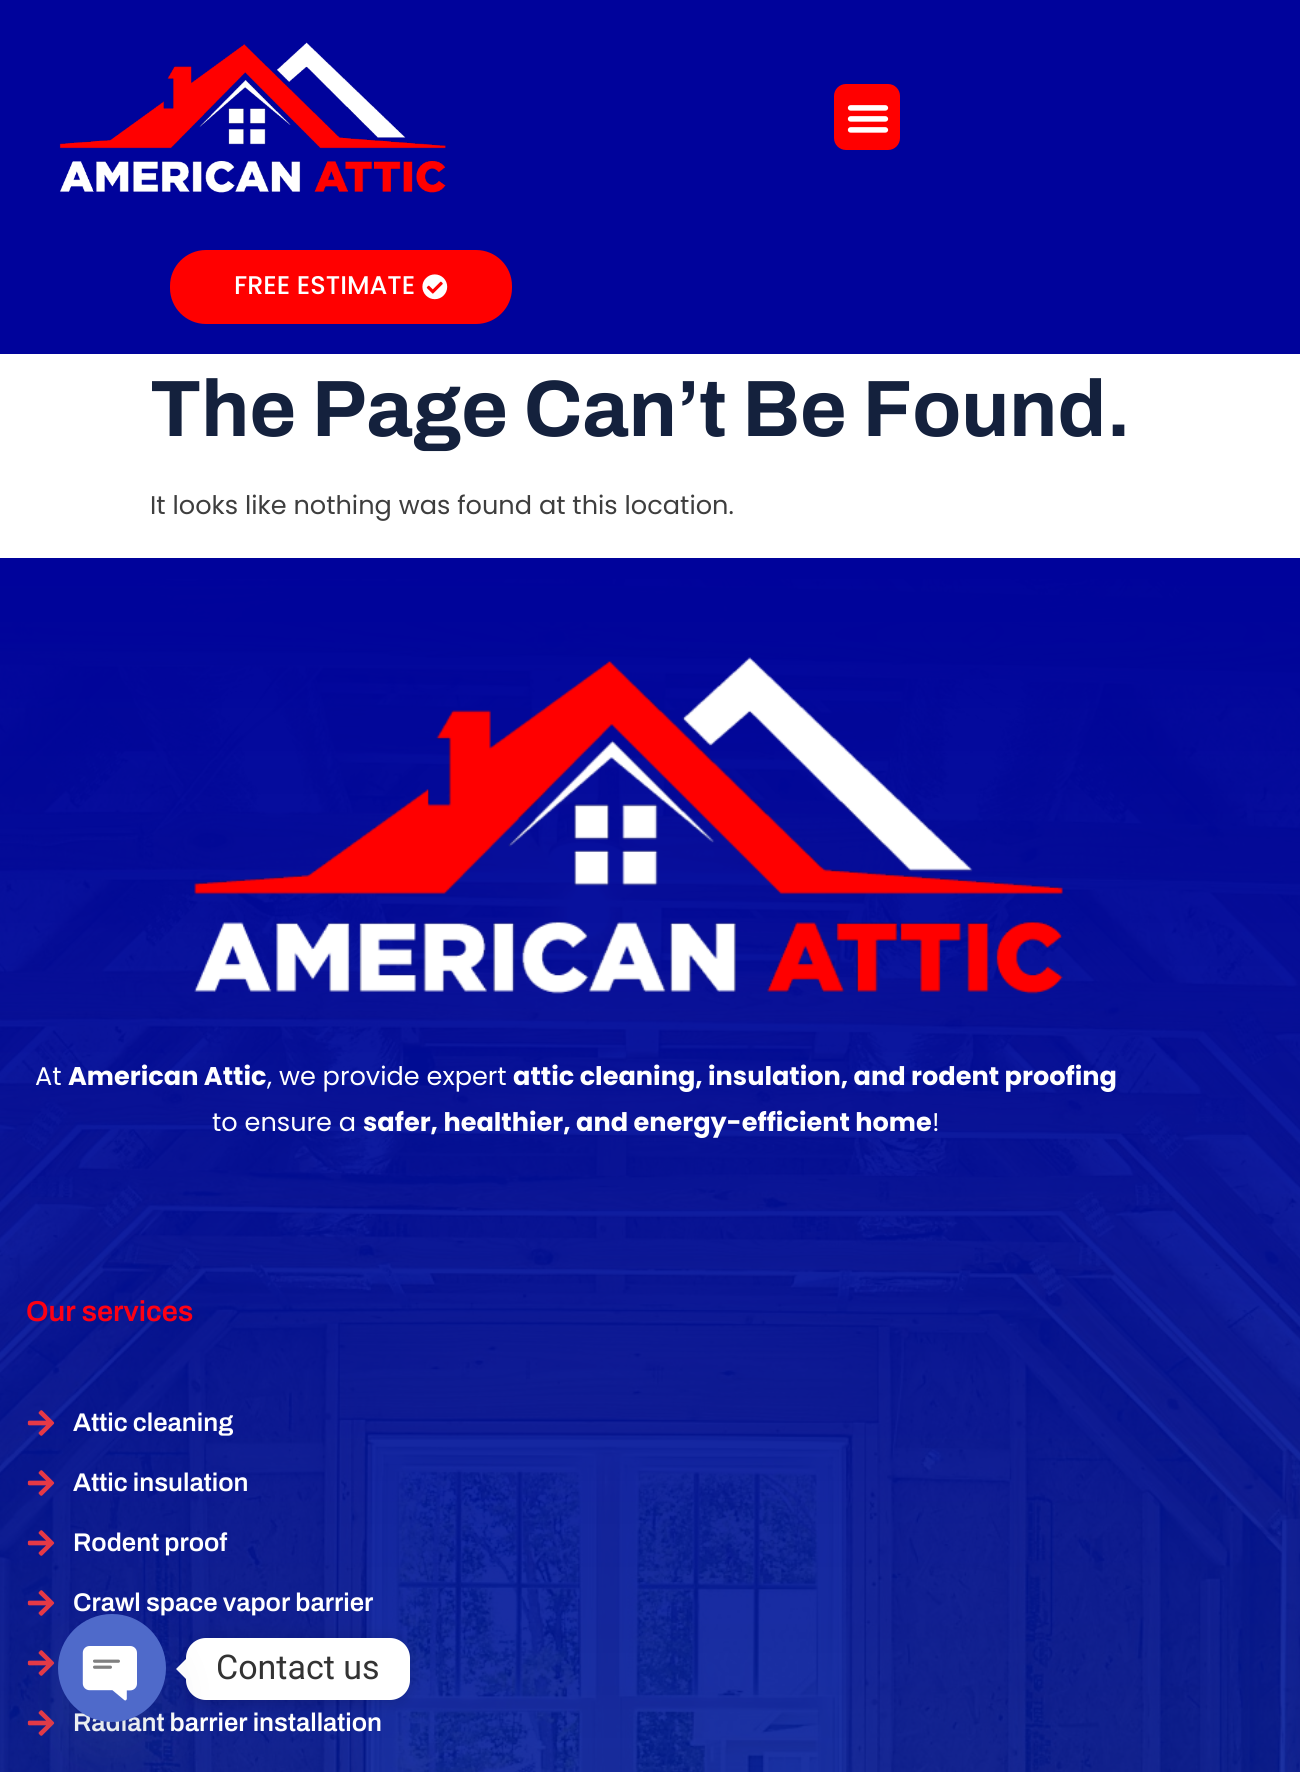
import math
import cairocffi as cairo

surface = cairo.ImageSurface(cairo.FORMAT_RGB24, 1300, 1772)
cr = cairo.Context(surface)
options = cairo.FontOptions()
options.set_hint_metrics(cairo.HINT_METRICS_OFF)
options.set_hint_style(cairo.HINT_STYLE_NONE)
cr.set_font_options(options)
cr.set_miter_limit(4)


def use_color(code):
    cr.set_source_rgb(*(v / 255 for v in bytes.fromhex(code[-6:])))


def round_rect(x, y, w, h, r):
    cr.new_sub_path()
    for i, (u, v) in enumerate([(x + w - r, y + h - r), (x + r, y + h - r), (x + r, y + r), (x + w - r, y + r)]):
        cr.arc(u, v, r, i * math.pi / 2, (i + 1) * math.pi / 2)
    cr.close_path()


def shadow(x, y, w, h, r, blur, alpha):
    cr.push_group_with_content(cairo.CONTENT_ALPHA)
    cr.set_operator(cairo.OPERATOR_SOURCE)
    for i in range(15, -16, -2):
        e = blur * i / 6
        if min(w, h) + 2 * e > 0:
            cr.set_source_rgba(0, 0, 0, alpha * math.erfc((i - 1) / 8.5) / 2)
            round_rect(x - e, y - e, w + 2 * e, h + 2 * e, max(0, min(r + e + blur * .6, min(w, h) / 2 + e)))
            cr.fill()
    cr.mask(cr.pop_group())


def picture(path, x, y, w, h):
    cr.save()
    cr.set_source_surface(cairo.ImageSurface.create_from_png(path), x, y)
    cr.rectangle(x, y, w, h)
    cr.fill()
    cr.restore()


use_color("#ffffff")
cr.paint()
use_color("#00039b")
cr.rectangle(0, 0, 1300, 354)
cr.fill()
picture("img1.png", 59, 42, 387, 151)
use_color("#ff0000")
round_rect(834, 84, 66, 66, 12)
cr.fill()
picture("img2.png", 847, 105, 42, 28)
round_rect(170, 250, 342, 74, 36)
cr.fill()
cr.select_font_face("Poppins Medium")
cr.set_font_size(25.6)
use_color("#ffffff")
cr.move_to(234, 294)
cr.show_text("FREE ESTIMATE")
picture("img3.png", 422, 274, 26, 26)
cr.select_font_face("Archivo", cairo.FONT_SLANT_NORMAL, cairo.FONT_WEIGHT_BOLD)
cr.set_font_size(80)
use_color("#14213d")
cr.move_to(150, 436)
cr.show_text("The Page Can’t Be Found.")
cr.select_font_face("Poppins")
cr.set_font_size(25.6)
use_color("#3e3e3e")
cr.move_to(150, 514)
cr.show_text("It looks like nothing was found at this location.")
picture("img4.png", 0, 558, 1300, 1214)
picture("img5.png", 194, 657, 869, 337)
use_color("#ffffff")
cr.move_to(35, 1085)
cr.show_text("At")
cr.select_font_face("Poppins", cairo.FONT_SLANT_NORMAL, cairo.FONT_WEIGHT_BOLD)
cr.move_to(68, 1085)
cr.show_text("American Attic")
cr.select_font_face("Poppins")
cr.move_to(267, 1085)
cr.show_text(", we provide expert")
cr.select_font_face("Poppins", cairo.FONT_SLANT_NORMAL, cairo.FONT_WEIGHT_BOLD)
cr.move_to(513, 1085)
cr.show_text("attic cleaning, insulation, and rodent proofing")
cr.select_font_face("Poppins")
cr.move_to(212, 1131)
cr.show_text("to ensure a")
cr.select_font_face("Poppins", cairo.FONT_SLANT_NORMAL, cairo.FONT_WEIGHT_BOLD)
cr.move_to(363, 1131)
cr.show_text("safer, healthier, and energy-efficient home")
cr.select_font_face("Poppins")
cr.move_to(932, 1131)
cr.show_text("!")
cr.select_font_face("Archivo SemiBold")
cr.set_font_size(28.75)
use_color("#ff0013")
cr.move_to(26, 1321)
cr.show_text("Our services")
picture("img6.png", 27, 1410, 28, 26)
cr.set_font_size(25.6)
use_color("#ffffff")
cr.move_to(73, 1431)
cr.show_text("Attic cleaning")
picture("img7.png", 27, 1470, 28, 26)
cr.move_to(73, 1491)
cr.show_text("Attic insulation")
picture("img8.png", 27, 1530, 28, 26)
cr.move_to(73, 1551)
cr.show_text("Rodent proof")
picture("img9.png", 27, 1590, 28, 26)
cr.move_to(73, 1611)
cr.show_text("Crawl space vapor barrier")
picture("img10.png", 27, 1650, 28, 26)
picture("img11.png", 27, 1710, 28, 26)
cr.move_to(73, 1731)
cr.show_text("Radiant barrier installation")
use_color("#000000")
shadow(186, 1640, 224, 62, 20, 7.5, 0.15)
use_color("#ffffff")
round_rect(186, 1638, 224, 62, 20)
cr.fill()
cr.new_path()
cr.move_to(186, 1659)
cr.line_to(186, 1679)
cr.line_to(176, 1669)
cr.close_path()
cr.fill()
use_color("#49687e")
shadow(58, 1646, 108, 108, 54, 24, 0.16)
picture("img12.png", 58, 1614, 108, 108)
cr.select_font_face("Roboto")
cr.set_font_size(34)
use_color("#333333")
cr.move_to(216, 1679)
cr.show_text("Contact us")
surface.write_to_png("result.png")
